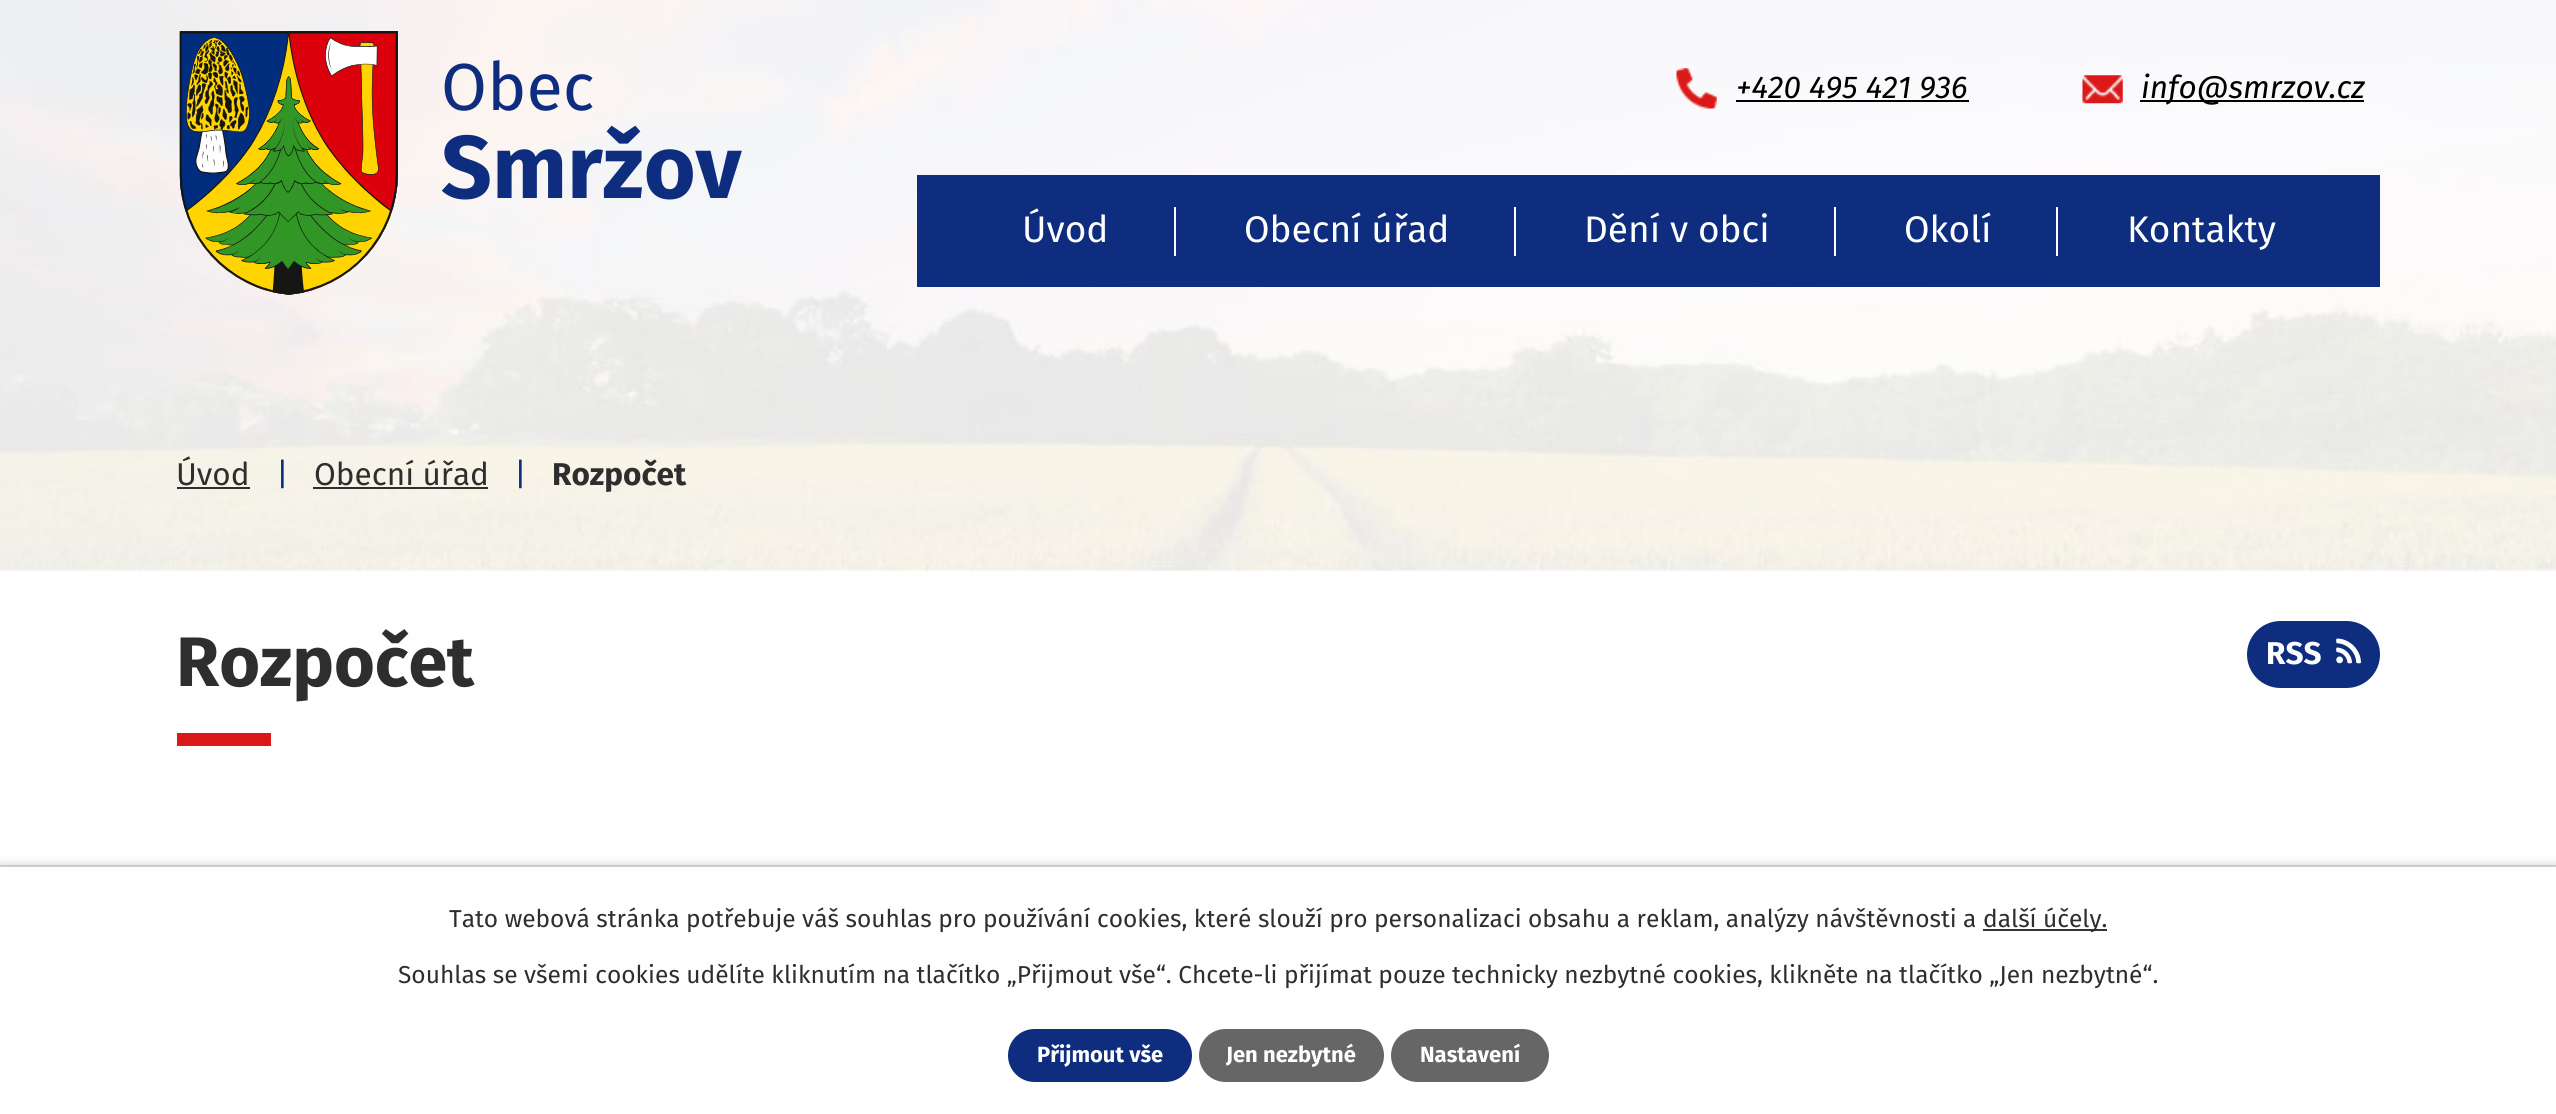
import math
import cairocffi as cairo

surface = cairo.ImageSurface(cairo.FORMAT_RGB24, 2556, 1114)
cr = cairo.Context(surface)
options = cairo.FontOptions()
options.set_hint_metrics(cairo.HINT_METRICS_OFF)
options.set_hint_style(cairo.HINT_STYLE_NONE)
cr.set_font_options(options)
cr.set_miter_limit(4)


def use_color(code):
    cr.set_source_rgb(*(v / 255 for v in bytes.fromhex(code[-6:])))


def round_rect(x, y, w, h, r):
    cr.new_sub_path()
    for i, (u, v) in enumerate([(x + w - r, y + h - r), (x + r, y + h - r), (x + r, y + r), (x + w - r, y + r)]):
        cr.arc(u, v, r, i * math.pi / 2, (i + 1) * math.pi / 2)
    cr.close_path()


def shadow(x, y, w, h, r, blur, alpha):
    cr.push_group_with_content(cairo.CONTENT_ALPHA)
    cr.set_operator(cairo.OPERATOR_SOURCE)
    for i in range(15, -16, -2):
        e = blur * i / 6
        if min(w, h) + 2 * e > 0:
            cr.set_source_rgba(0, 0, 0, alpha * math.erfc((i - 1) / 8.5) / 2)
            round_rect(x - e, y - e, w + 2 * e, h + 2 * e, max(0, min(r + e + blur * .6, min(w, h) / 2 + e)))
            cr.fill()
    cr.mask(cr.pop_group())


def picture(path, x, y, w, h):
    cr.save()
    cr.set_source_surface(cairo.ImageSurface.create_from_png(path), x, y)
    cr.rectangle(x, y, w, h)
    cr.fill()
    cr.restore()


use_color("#ffffff")
cr.paint()
picture("img4.png", 0, 0, 2556, 573)
picture("img1.png", 179, 31, 219, 264)
cr.select_font_face("Fira Sans")
cr.set_font_size(66.5)
use_color("#0e2d7e")
cr.move_to(441, 110)
cr.show_text("Obec")
cr.select_font_face("Fira Sans", cairo.FONT_SLANT_NORMAL, cairo.FONT_WEIGHT_BOLD)
cr.set_font_size(89)
cr.move_to(441, 198)
cr.show_text("Smržov")
picture("img2.png", 1676, 68, 41, 41)
cr.select_font_face("Fira Sans", cairo.FONT_SLANT_ITALIC)
cr.set_font_size(31.5)
use_color("#000000")
cr.move_to(1736, 98)
cr.show_text("+420 495 421 936")
cr.rectangle(1736, 100, 233, 2)
cr.fill()
picture("img3.png", 2082, 75, 41, 29)
cr.rectangle(2140, 100, 224, 2)
cr.fill()
cr.move_to(2141, 98)
cr.show_text("info@smrzov.cz")
use_color("#0e2d7e")
cr.rectangle(917, 175, 1463, 112)
cr.fill()
cr.select_font_face("Fira Sans")
cr.set_font_size(37)
use_color("#ffffff")
cr.move_to(1022, 242)
cr.show_text("Úvod")
cr.rectangle(1174, 207, 2, 49)
cr.fill()
cr.move_to(1244, 242)
cr.show_text("Obecní úřad")
cr.rectangle(1514, 207, 2, 49)
cr.fill()
cr.move_to(1584, 242)
cr.show_text("Dění v obci")
cr.rectangle(1834, 207, 2, 49)
cr.fill()
cr.move_to(1904, 242)
cr.show_text("Okolí")
cr.rectangle(2056, 207, 2, 49)
cr.fill()
cr.move_to(2127, 242)
cr.show_text("Kontakty")
cr.set_font_size(31.5)
use_color("#2e2e2e")
cr.move_to(176, 485)
cr.show_text("Úvod")
cr.rectangle(177, 487, 73, 2)
cr.fill()
use_color("#0e2d7e")
cr.move_to(276, 485)
cr.show_text("|")
use_color("#2e2e2e")
cr.move_to(314, 485)
cr.show_text("Obecní úřad")
cr.rectangle(313, 487, 175, 2)
cr.fill()
use_color("#0e2d7e")
cr.move_to(514, 485)
cr.show_text("|")
cr.select_font_face("Fira Sans", cairo.FONT_SLANT_NORMAL, cairo.FONT_WEIGHT_BOLD)
use_color("#2e2e2e")
cr.move_to(552, 485)
cr.show_text("Rozpočet")
cr.set_font_size(70)
cr.move_to(176, 686)
cr.show_text("Rozpočet")
use_color("#db1918")
cr.rectangle(177, 733, 94, 13)
cr.fill()
use_color("#0e2d7e")
round_rect(2247, 621, 133, 67, 33.5)
cr.fill()
cr.set_font_size(31.5)
use_color("#ffffff")
cr.move_to(2266, 664)
cr.show_text("RSS")
picture("img5.png", 2336, 638, 25, 26)
use_color("#000000")
shadow(0, 865, 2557, 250, 0, 4.5, 0.2)
use_color("#ffffff")
cr.rectangle(0, 867, 2556, 247)
cr.fill()
use_color("#cccccc")
cr.rectangle(0, 865, 2556, 2)
cr.fill()
cr.select_font_face("Fira Sans")
cr.set_font_size(24.5)
use_color("#2e2e2e")
cr.move_to(449, 927)
cr.show_text("Tato webová stránka potřebuje váš souhlas pro používání cookies, které slouží pro personalizaci obsahu a reklam, analýzy návštěvnosti a")
use_color("#333333")
cr.rectangle(1983, 929, 124, 2)
cr.fill()
use_color("#2e2e2e")
cr.move_to(1983, 927)
cr.show_text("další účely.")
cr.move_to(398, 983)
cr.show_text("Souhlas se všemi cookies udělíte kliknutím na tlačítko „Přijmout vše“. Chcete-li přijímat pouze technicky nezbytné cookies, klikněte na tlačítko „Jen nezbytné“.")
use_color("#0e2d7e")
round_rect(1008, 1029, 184, 53, 26.5)
cr.fill()
cr.select_font_face("Fira Sans", cairo.FONT_SLANT_NORMAL, cairo.FONT_WEIGHT_BOLD)
cr.set_font_size(22)
use_color("#ffffff")
cr.move_to(1037, 1062)
cr.show_text("Přijmout vše")
use_color("#666666")
round_rect(1199, 1029, 185, 53, 26.5)
cr.fill()
use_color("#ffffff")
cr.move_to(1226, 1062)
cr.show_text("Jen nezbytné")
use_color("#666666")
round_rect(1391, 1029, 158, 53, 26.5)
cr.fill()
use_color("#ffffff")
cr.move_to(1420, 1062)
cr.show_text("Nastavení")
surface.write_to_png("result.png")
